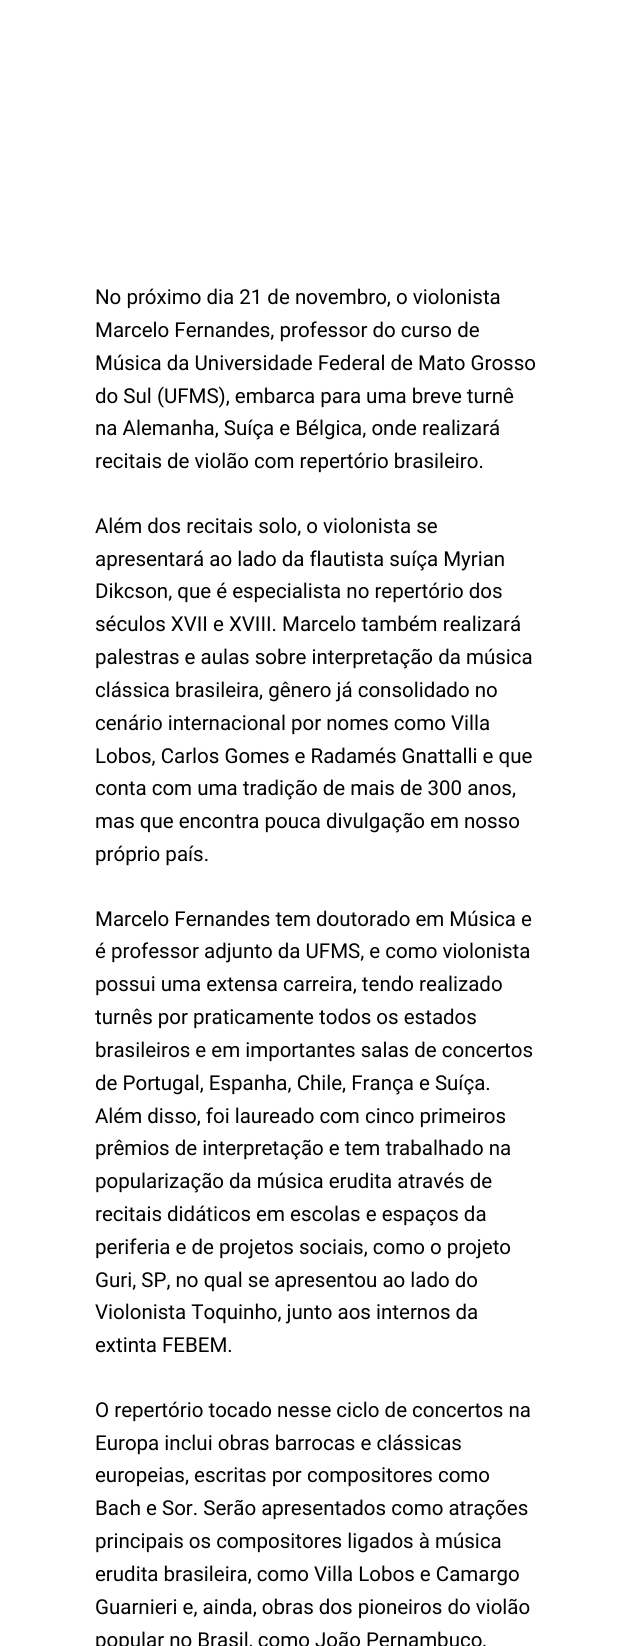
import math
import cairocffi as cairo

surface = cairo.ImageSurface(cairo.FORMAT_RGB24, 632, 1646)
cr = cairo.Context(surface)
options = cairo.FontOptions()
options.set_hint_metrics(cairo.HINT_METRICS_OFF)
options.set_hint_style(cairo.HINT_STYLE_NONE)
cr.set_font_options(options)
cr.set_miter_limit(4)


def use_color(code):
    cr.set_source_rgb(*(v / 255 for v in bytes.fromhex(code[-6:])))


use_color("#ffffff")
cr.paint()
cr.select_font_face("Roboto")
cr.set_font_size(20.5)
use_color("#000000")
cr.move_to(95, 304)
cr.show_text("No próximo dia 21 de novembro, o violonista")
cr.move_to(95, 337)
cr.show_text("Marcelo Fernandes, professor do curso de")
cr.move_to(95, 370)
cr.show_text("Música da Universidade Federal de Mato Grosso")
cr.move_to(95, 403)
cr.show_text("do Sul (UFMS), embarca para uma breve turnê")
cr.move_to(95, 435)
cr.show_text("na Alemanha, Suíça e Bélgica, onde realizará")
cr.move_to(95, 468)
cr.show_text("recitais de violão com repertório brasileiro.")
cr.move_to(95, 533)
cr.show_text("Além dos recitais solo, o violonista se")
cr.move_to(95, 566)
cr.show_text("apresentará ao lado da flautista suíça Myrian")
cr.move_to(95, 598)
cr.show_text("Dikcson, que é especialista no repertório dos")
cr.move_to(95, 631)
cr.show_text("séculos XVII e XVIII. Marcelo também realizará")
cr.move_to(95, 664)
cr.show_text("palestras e aulas sobre interpretação da música")
cr.move_to(95, 697)
cr.show_text("clássica brasileira, gênero já consolidado no")
cr.move_to(95, 730)
cr.show_text("cenário internacional por nomes como Villa")
cr.move_to(95, 763)
cr.show_text("Lobos, Carlos Gomes e Radamés Gnattalli e que")
cr.move_to(95, 795)
cr.show_text("conta com uma tradição de mais de 300 anos,")
cr.move_to(95, 828)
cr.show_text("mas que encontra pouca divulgação em nosso")
cr.move_to(95, 861)
cr.show_text("próprio país.")
cr.move_to(95, 926)
cr.show_text("Marcelo Fernandes tem doutorado em Música e")
cr.move_to(95, 958)
cr.show_text("é professor adjunto da UFMS, e como violonista")
cr.move_to(95, 991)
cr.show_text("possui uma extensa carreira, tendo realizado")
cr.move_to(95, 1024)
cr.show_text("turnês por praticamente todos os estados")
cr.move_to(95, 1057)
cr.show_text("brasileiros e em importantes salas de concertos")
cr.move_to(95, 1090)
cr.show_text("de Portugal, Espanha, Chile, França e Suíça.")
cr.move_to(95, 1123)
cr.show_text("Além disso, foi laureado com cinco primeiros")
cr.move_to(95, 1155)
cr.show_text("prêmios de interpretação e tem trabalhado na")
cr.move_to(95, 1188)
cr.show_text("popularização da música erudita através de")
cr.move_to(95, 1221)
cr.show_text("recitais didáticos em escolas e espaços da")
cr.move_to(95, 1254)
cr.show_text("periferia e de projetos sociais, como o projeto")
cr.move_to(95, 1287)
cr.show_text("Guri, SP, no qual se apresentou ao lado do")
cr.move_to(95, 1319)
cr.show_text("Violonista Toquinho, junto aos internos da")
cr.move_to(95, 1352)
cr.show_text("extinta FEBEM.")
cr.move_to(95, 1417)
cr.show_text("O repertório tocado nesse ciclo de concertos na")
cr.move_to(95, 1450)
cr.show_text("Europa inclui obras barrocas e clássicas")
cr.move_to(95, 1482)
cr.show_text("europeias, escritas por compositores como")
cr.move_to(95, 1515)
cr.show_text("Bach e Sor. Serão apresentados como atrações")
cr.move_to(95, 1548)
cr.show_text("principais os compositores ligados à música")
cr.move_to(95, 1581)
cr.show_text("erudita brasileira, como Villa Lobos e Camargo")
cr.move_to(95, 1614)
cr.show_text("Guarnieri e, ainda, obras dos pioneiros do violão")
cr.move_to(95, 1647)
cr.show_text("popular no Brasil, como João Pernambuco,")
surface.write_to_png("result.png")
